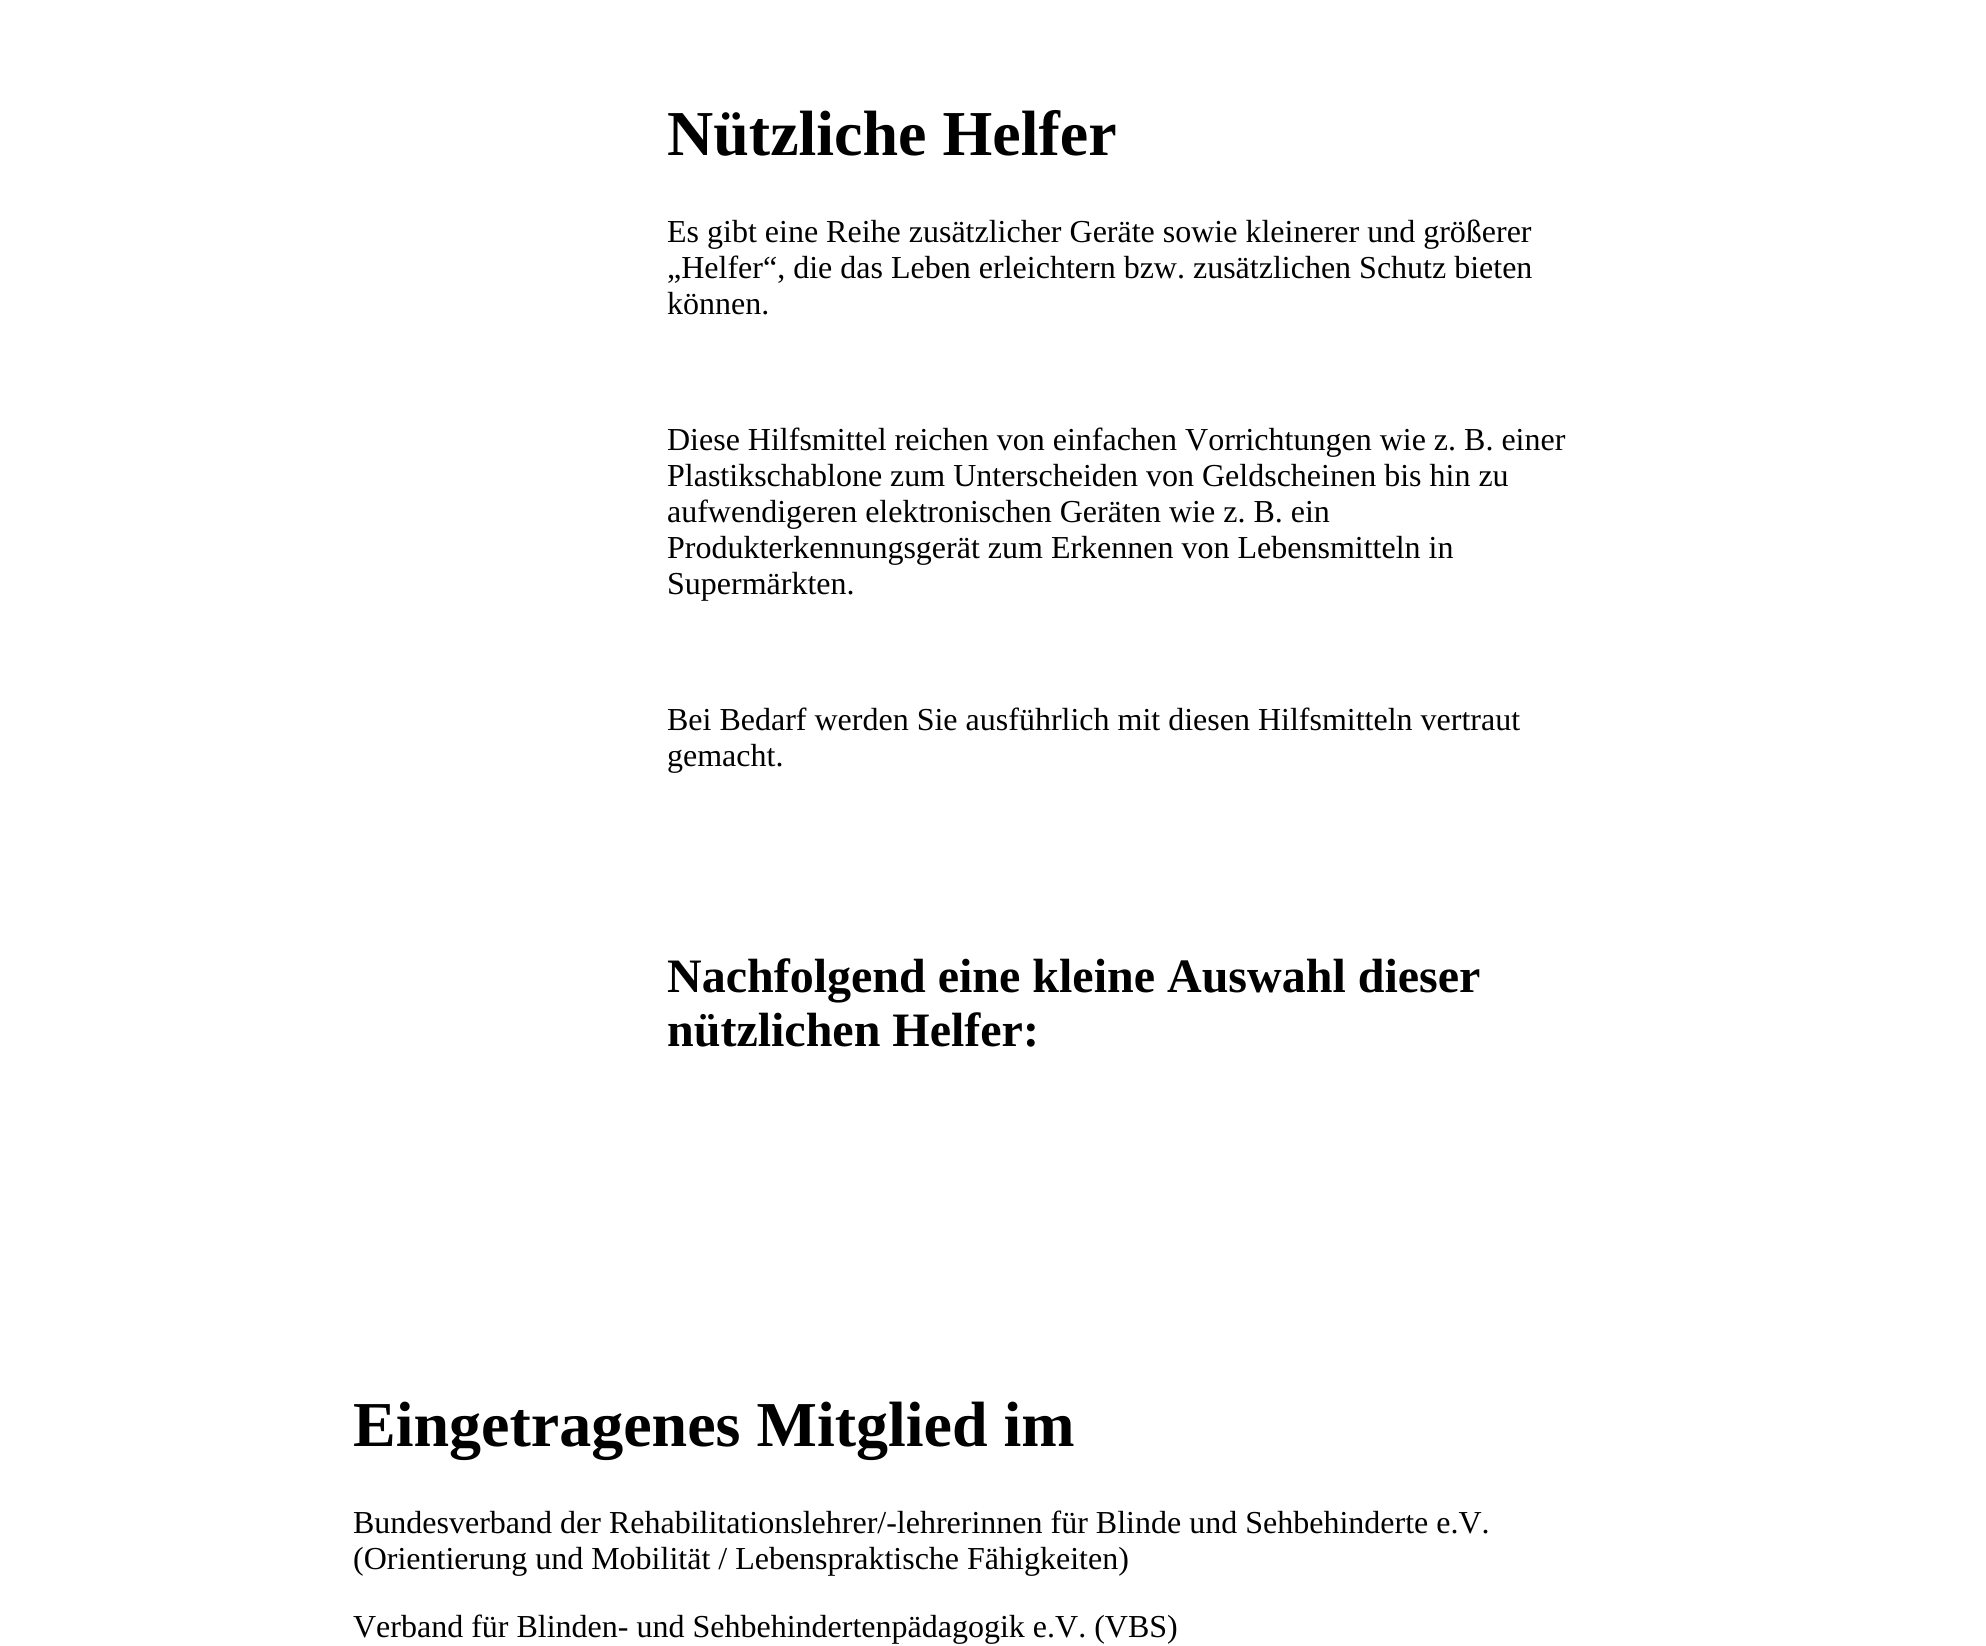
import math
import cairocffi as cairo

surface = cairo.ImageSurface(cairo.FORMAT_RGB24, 1986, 1646)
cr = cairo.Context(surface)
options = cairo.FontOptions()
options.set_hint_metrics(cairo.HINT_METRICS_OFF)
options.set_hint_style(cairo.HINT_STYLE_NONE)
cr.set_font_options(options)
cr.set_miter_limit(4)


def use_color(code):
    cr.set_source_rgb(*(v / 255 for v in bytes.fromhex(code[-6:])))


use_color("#ffffff")
cr.paint()
cr.select_font_face("Liberation Serif", cairo.FONT_SLANT_NORMAL, cairo.FONT_WEIGHT_BOLD)
cr.set_font_size(64)
use_color("#000000")
cr.move_to(667, 155)
cr.show_text("Nützliche Helfer")
cr.select_font_face("Liberation Serif")
cr.set_font_size(32)
cr.move_to(667, 242)
cr.show_text("Es gibt eine Reihe zusätzlicher Geräte sowie kleinerer und größerer")
cr.move_to(667, 278)
cr.show_text("„Helfer“, die das Leben erleichtern bzw. zusätzlichen Schutz bieten")
cr.move_to(667, 314)
cr.show_text("können.")
cr.move_to(667, 450)
cr.show_text("Diese Hilfsmittel reichen von einfachen Vorrichtungen wie z. B. einer")
cr.move_to(667, 486)
cr.show_text("Plastikschablone zum Unterscheiden von Geldscheinen bis hin zu")
cr.move_to(667, 522)
cr.show_text("aufwendigeren elektronischen Geräten wie z. B. ein")
cr.move_to(667, 558)
cr.show_text("Produkterkennungsgerät zum Erkennen von Lebensmitteln in")
cr.move_to(667, 594)
cr.show_text("Supermärkten.")
cr.move_to(667, 730)
cr.show_text("Bei Bedarf werden Sie ausführlich mit diesen Hilfsmitteln vertraut")
cr.move_to(667, 766)
cr.show_text("gemacht.")
cr.select_font_face("Liberation Serif", cairo.FONT_SLANT_NORMAL, cairo.FONT_WEIGHT_BOLD)
cr.set_font_size(48)
cr.move_to(667, 992)
cr.show_text("Nachfolgend eine kleine Auswahl dieser")
cr.move_to(667, 1046)
cr.show_text("nützlichen Helfer:")
cr.set_font_size(64)
cr.move_to(353, 1446)
cr.show_text("Eingetragenes Mitglied im")
cr.select_font_face("Liberation Serif")
cr.set_font_size(32)
cr.move_to(353, 1533)
cr.show_text("Bundesverband der Rehabilitationslehrer/-lehrerinnen für Blinde und Sehbehinderte e.V.")
cr.move_to(353, 1569)
cr.show_text("(Orientierung und Mobilität / Lebenspraktische Fähigkeiten)")
cr.move_to(353, 1637)
cr.show_text("Verband für Blinden- und Sehbehindertenpädagogik e.V. (VBS)")
surface.write_to_png("result.png")
